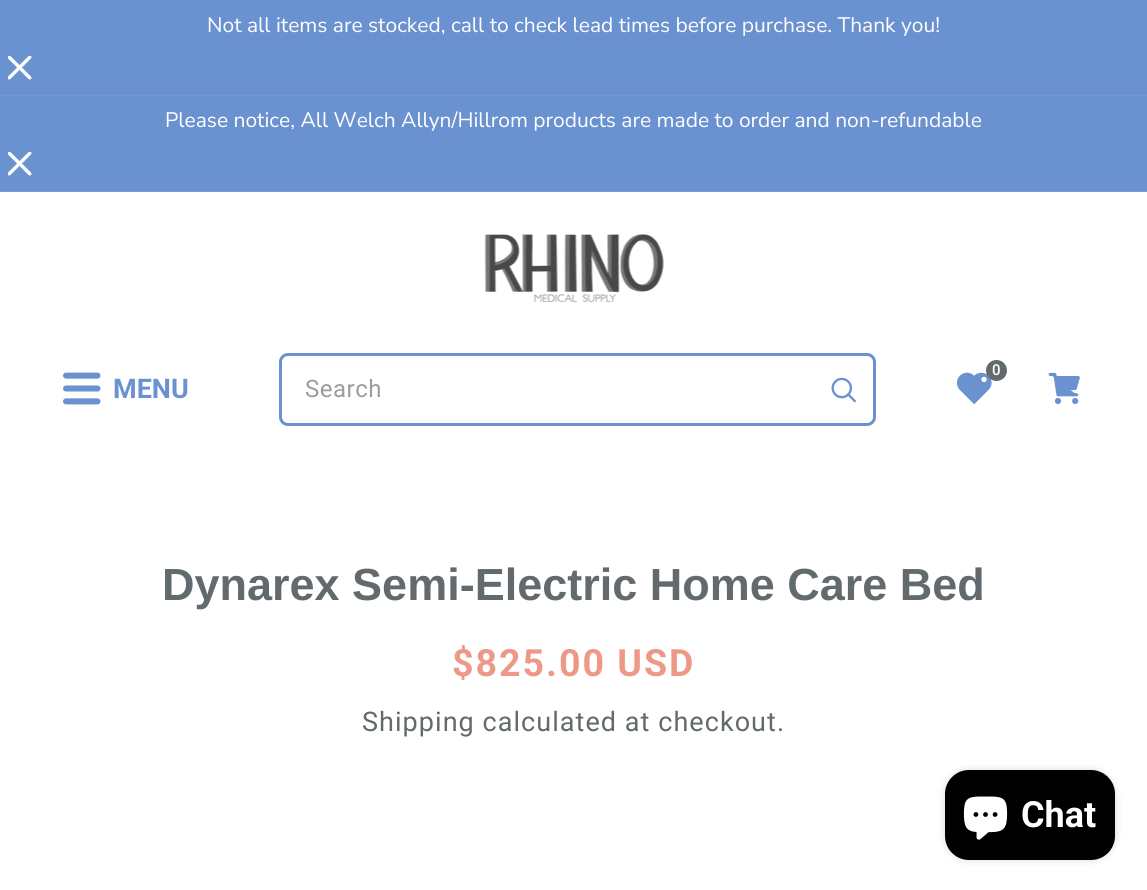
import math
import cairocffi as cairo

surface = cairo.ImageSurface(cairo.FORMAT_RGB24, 1147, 890)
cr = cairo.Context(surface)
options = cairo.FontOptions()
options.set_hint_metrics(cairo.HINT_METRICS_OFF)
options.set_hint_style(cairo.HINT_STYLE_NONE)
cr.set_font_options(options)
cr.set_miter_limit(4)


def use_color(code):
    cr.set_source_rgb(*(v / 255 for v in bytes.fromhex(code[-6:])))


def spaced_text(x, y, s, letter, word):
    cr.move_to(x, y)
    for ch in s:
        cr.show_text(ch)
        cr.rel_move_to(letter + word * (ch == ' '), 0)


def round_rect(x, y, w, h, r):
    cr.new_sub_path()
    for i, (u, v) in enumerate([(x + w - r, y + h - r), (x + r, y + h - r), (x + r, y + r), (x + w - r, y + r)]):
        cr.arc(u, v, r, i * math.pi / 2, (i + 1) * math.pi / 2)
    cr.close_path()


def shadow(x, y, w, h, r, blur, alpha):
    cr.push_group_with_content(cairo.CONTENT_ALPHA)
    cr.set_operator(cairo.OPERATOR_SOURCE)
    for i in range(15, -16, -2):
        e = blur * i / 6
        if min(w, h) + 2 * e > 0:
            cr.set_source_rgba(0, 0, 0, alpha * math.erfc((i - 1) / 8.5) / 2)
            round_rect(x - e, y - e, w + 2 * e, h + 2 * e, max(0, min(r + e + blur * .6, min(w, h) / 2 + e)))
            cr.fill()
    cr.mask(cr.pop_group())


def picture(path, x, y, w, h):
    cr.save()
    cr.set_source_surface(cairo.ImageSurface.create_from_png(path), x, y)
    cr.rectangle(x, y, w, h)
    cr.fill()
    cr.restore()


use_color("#ffffff")
cr.paint()
use_color("#6a91d0")
cr.rectangle(0, 0, 1147, 95)
cr.fill()
use_color("#7699d4")
cr.rectangle(0, 95, 1147, 1)
cr.fill()
cr.select_font_face("Nunito Sans")
cr.set_font_size(21)
use_color("#ffffff")
cr.move_to(207, 32)
cr.show_text("Not all items are stocked, call to check lead times before purchase. Thank you!")
picture("img1.png", 8, 56, 24, 24)
use_color("#6a91d0")
cr.rectangle(0, 96, 1147, 96)
cr.fill()
cr.set_source_rgba(1, 1, 1, 0.08)
cr.rectangle(0, 191, 1147, 1)
cr.fill()
use_color("#ffffff")
cr.move_to(165, 127)
cr.show_text("Please notice, All Welch Allyn/Hillrom products are made to order and non-refundable")
picture("img1.png", 8, 152, 24, 24)
picture("img2.png", 484, 234, 180, 69)
picture("img3.png", 63, 372, 38, 33)
cr.select_font_face("Roboto", cairo.FONT_SLANT_NORMAL, cairo.FONT_WEIGHT_BOLD)
cr.set_font_size(27)
use_color("#6a91d0")
cr.move_to(113, 398)
cr.show_text("MENU")
picture("img4.png", 956, 372, 36, 33)
use_color("#636a6e")
cr.arc(996.5, 370.5, 10.5, 0, 2 * math.pi)
cr.fill()
cr.select_font_face("Roboto Medium")
cr.set_font_size(15)
use_color("#ffffff")
cr.move_to(992, 375)
cr.show_text("0")
round_rect(280.5, 354.5, 594, 70, 7.5)
use_color("#6a91d0")
cr.set_line_width(3)
cr.stroke()
cr.select_font_face("Roboto")
cr.set_font_size(24)
use_color("#9c9c9c")
spaced_text(305, 397, "Search", 0.5, 0)
picture("img5.png", 831, 377, 25, 26)
picture("img6.png", 1048, 372, 32, 33)
cr.select_font_face("Liberation Sans", cairo.FONT_SLANT_NORMAL, cairo.FONT_WEIGHT_BOLD)
cr.set_font_size(45)
use_color("#636a6e")
cr.move_to(162, 600)
cr.show_text("Dynarex Semi-Electric Home Care Bed")
cr.select_font_face("Roboto", cairo.FONT_SLANT_NORMAL, cairo.FONT_WEIGHT_BOLD)
cr.set_font_size(37.5)
use_color("#ee9887")
spaced_text(452, 676, "$825.00 USD", 2, 0)
cr.select_font_face("Roboto")
cr.set_font_size(27)
use_color("#636a6e")
spaced_text(362, 731, "Shipping calculated at checkout.", 1.05, 0)
use_color("#000000")
shadow(945, 770, 170, 90, 24, 4, 0.15)
use_color("#000000")
round_rect(945, 770, 170, 90, 24)
cr.fill()
picture("img7.png", 963, 796, 45, 44)
cr.select_font_face("Roboto", cairo.FONT_SLANT_NORMAL, cairo.FONT_WEIGHT_BOLD)
cr.set_font_size(36)
use_color("#ffffff")
cr.move_to(1021, 827)
cr.show_text("Chat")
surface.write_to_png("result.png")
